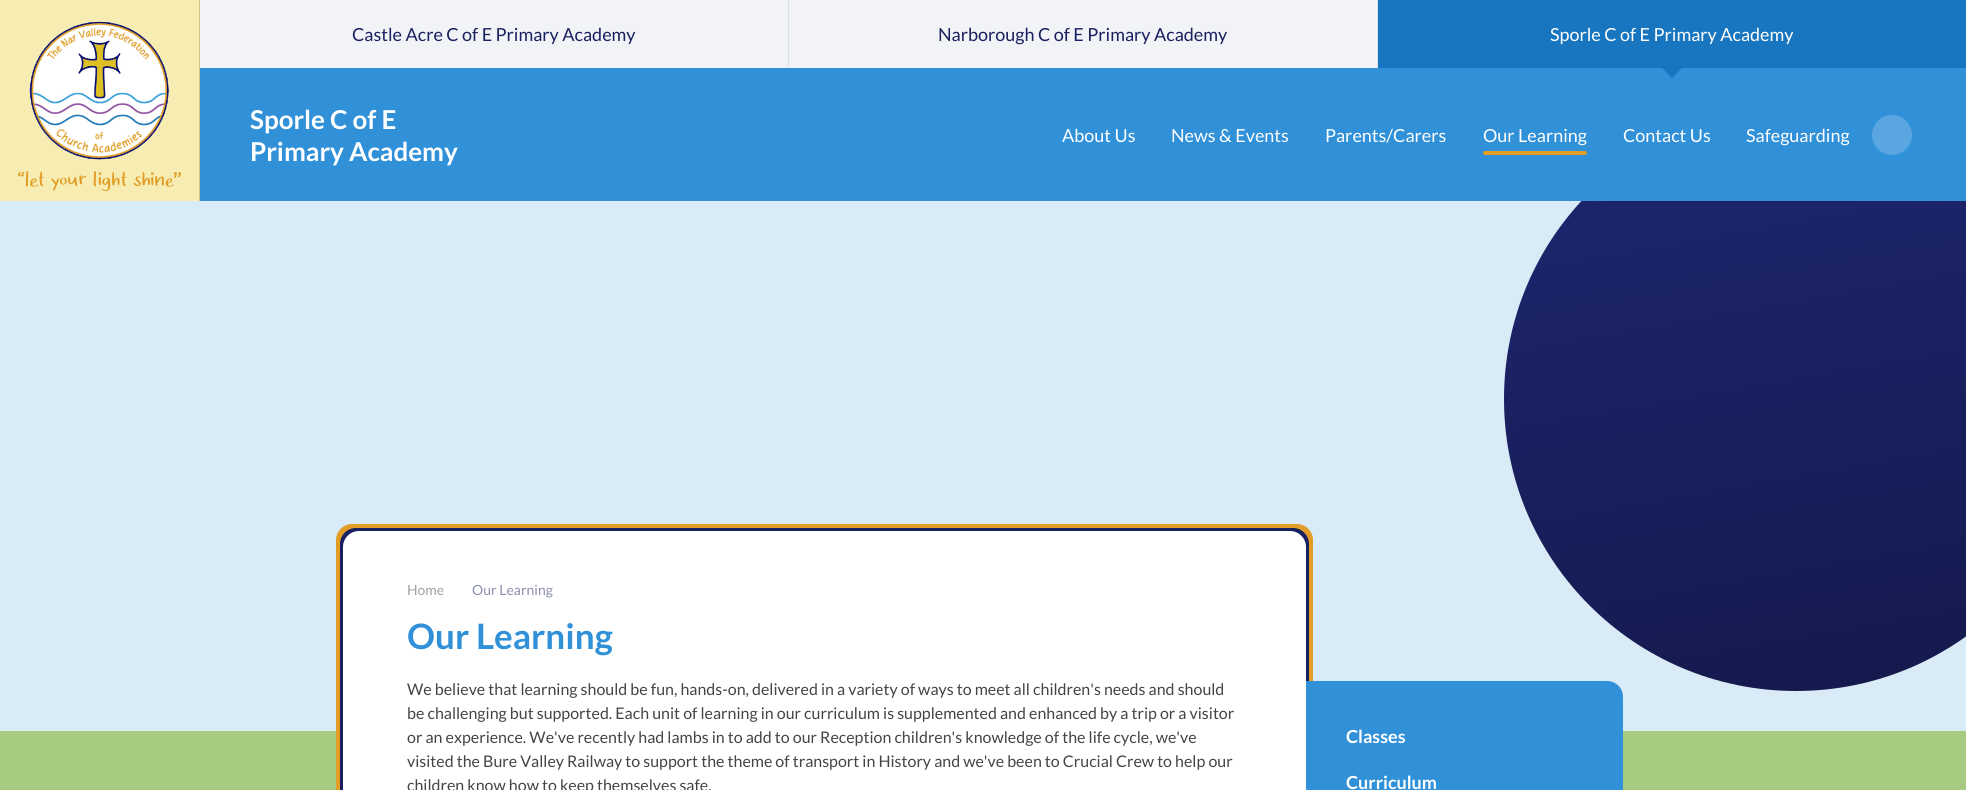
import math
import cairocffi as cairo

surface = cairo.ImageSurface(cairo.FORMAT_RGB24, 1966, 790)
cr = cairo.Context(surface)
options = cairo.FontOptions()
options.set_hint_metrics(cairo.HINT_METRICS_OFF)
options.set_hint_style(cairo.HINT_STYLE_NONE)
cr.set_font_options(options)
cr.set_miter_limit(4)


def use_color(code):
    cr.set_source_rgb(*(v / 255 for v in bytes.fromhex(code[-6:])))


def round_rect(x, y, w, h, r):
    cr.new_sub_path()
    for i, (u, v) in enumerate([(x + w - r, y + h - r), (x + r, y + h - r), (x + r, y + r), (x + w - r, y + r)]):
        cr.arc(u, v, r, i * math.pi / 2, (i + 1) * math.pi / 2)
    cr.close_path()


def picture(path, x, y, w, h):
    cr.save()
    cr.set_source_surface(cairo.ImageSurface.create_from_png(path), x, y)
    cr.rectangle(x, y, w, h)
    cr.fill()
    cr.restore()


use_color("#d9ebf7")
cr.paint()
gradient = cairo.LinearGradient(1737, 66, 1855, 732)
gradient.add_color_stop_rgba(0, 0.118, 0.153, 0.451, 1)
gradient.add_color_stop_rgba(1, 0.078, 0.098, 0.294, 1)
cr.set_source(gradient)
cr.arc(1796, 399, 292, 0, 2 * math.pi)
cr.fill()
use_color("#3090d8")
cr.rectangle(200, 68, 1766, 133)
cr.fill()
use_color("#f7edb3")
cr.rectangle(0, 0, 199, 201)
cr.fill()
use_color("#cfc380")
cr.rectangle(199, 0, 1, 201)
cr.fill()
picture("img1.png", 29, 21, 140, 139)
picture("img2.png", 18, 171, 163, 20)
use_color("#f2f3f7")
cr.rectangle(200, 0, 1177, 68)
cr.fill()
cr.select_font_face("Lato")
cr.set_font_size(18)
use_color("#19205f")
cr.move_to(352, 41)
cr.show_text("Castle Acre C of E Primary Academy")
use_color("#dcdee8")
cr.rectangle(1377, 0, 1, 68)
cr.fill()
cr.rectangle(788, 0, 1, 68)
cr.fill()
use_color("#19205f")
cr.move_to(938, 41)
cr.show_text("Narborough C of E Primary Academy")
use_color("#1776bf")
cr.rectangle(1378, 0, 588, 68)
cr.fill()
use_color("#ffffff")
cr.move_to(1550, 41)
cr.show_text("Sporle C of E Primary Academy")
use_color("#1776bf")
cr.new_path()
cr.move_to(1662, 68)
cr.line_to(1682, 68)
cr.line_to(1672, 78)
cr.close_path()
cr.fill()
cr.select_font_face("Lato", cairo.FONT_SLANT_NORMAL, cairo.FONT_WEIGHT_BOLD)
cr.set_font_size(26)
use_color("#ffffff")
cr.move_to(250, 129)
cr.show_text("Sporle C of E")
cr.move_to(250, 161)
cr.show_text("Primary Academy")
cr.select_font_face("Lato")
cr.set_font_size(18)
cr.move_to(1062, 142)
cr.show_text("About Us")
cr.move_to(1171, 142)
cr.show_text("News & Events")
cr.move_to(1325, 142)
cr.show_text("Parents/Carers")
cr.move_to(1483, 142)
cr.show_text("Our Learning")
use_color("#e19d26")
round_rect(1483, 151, 104, 4, 2)
cr.fill()
use_color("#ffffff")
cr.move_to(1623, 142)
cr.show_text("Contact Us")
cr.move_to(1746, 142)
cr.show_text("Safeguarding")
use_color("#59a6e0")
cr.new_path()
cr.arc(1892, 135, 20, 0, 2 * math.pi)
cr.fill()
use_color("#a7ca81")
cr.rectangle(0, 731, 1966, 59)
cr.fill()
use_color("#e19d26")
round_rect(336, 524, 977, 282, 16)
cr.fill()
use_color("#19205f")
round_rect(340, 528, 969, 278, 16)
cr.fill()
use_color("#ffffff")
round_rect(343, 531, 963, 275, 16)
cr.fill()
cr.set_font_size(14)
use_color("#a2a2a2")
cr.move_to(407, 595)
cr.show_text("Home")
use_color("#8c90af")
cr.move_to(472, 595)
cr.show_text("Our Learning")
cr.select_font_face("Lato", cairo.FONT_SLANT_NORMAL, cairo.FONT_WEIGHT_BOLD)
cr.set_font_size(35)
use_color("#3090d8")
cr.move_to(407, 649)
cr.show_text("Our Learning")
cr.select_font_face("Lato")
cr.set_font_size(16)
use_color("#444444")
cr.move_to(407, 695)
cr.show_text("We believe that learning should be fun, hands-on, delivered in a variety of ways to meet all children's needs and should")
cr.move_to(407, 719)
cr.show_text("be challenging but supported. Each unit of learning in our curriculum is supplemented and enhanced by a trip or a visitor")
cr.move_to(407, 743)
cr.show_text("or an experience. We've recently had lambs in to add to our Reception children's knowledge of the life cycle, we've")
cr.move_to(407, 767)
cr.show_text("visited the Bure Valley Railway to support the theme of transport in History and we've been to Crucial Crew to help our")
cr.move_to(407, 791)
cr.show_text("children know how to keep themselves safe.")
use_color("#3090d8")
cr.new_path()
cr.move_to(1306, 681)
cr.line_to(1607, 681)
cr.curve_to(1616, 681, 1623, 688, 1623, 697)
cr.line_to(1623, 790)
cr.curve_to(1623, 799, 1616, 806, 1607, 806)
cr.line_to(1306, 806)
cr.close_path()
cr.fill()
cr.select_font_face("Lato", cairo.FONT_SLANT_NORMAL, cairo.FONT_WEIGHT_BOLD)
cr.set_font_size(18)
use_color("#ffffff")
cr.move_to(1346, 743)
cr.show_text("Classes")
cr.move_to(1346, 789)
cr.show_text("Curriculum")
surface.write_to_png("result.png")
